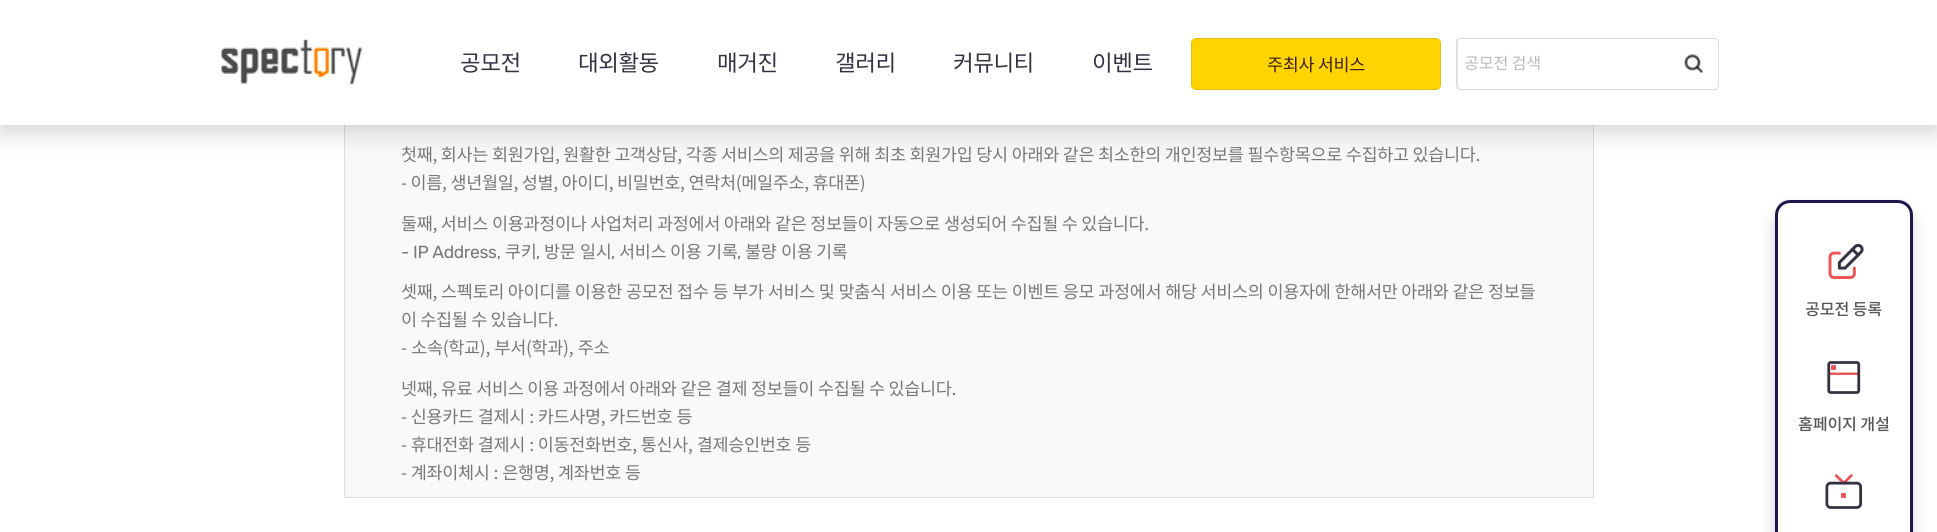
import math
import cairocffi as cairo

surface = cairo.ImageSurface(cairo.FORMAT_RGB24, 1937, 532)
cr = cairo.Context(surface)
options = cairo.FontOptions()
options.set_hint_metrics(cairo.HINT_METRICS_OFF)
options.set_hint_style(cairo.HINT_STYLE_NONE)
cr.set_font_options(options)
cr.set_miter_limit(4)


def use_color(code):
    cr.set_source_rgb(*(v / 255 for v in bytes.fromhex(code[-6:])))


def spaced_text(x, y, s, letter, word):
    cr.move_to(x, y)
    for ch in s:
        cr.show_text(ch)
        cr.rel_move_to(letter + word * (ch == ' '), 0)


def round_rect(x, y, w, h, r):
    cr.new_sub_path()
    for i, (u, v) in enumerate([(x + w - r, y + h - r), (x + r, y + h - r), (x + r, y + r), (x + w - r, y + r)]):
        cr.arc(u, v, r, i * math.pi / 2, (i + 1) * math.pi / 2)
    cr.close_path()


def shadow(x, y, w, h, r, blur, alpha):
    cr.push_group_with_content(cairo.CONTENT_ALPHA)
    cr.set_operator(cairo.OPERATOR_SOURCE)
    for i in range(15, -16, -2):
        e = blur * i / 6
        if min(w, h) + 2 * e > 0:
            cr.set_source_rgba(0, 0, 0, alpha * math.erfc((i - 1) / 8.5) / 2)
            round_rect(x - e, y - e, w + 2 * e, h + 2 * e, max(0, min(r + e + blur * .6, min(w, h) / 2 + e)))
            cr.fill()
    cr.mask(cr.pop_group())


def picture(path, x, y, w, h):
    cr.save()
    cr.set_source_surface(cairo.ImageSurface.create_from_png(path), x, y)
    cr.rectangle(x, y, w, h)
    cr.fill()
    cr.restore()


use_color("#ffffff")
cr.paint()
use_color("#f8f9fa")
cr.rectangle(345, 125, 1248, 372)
cr.fill()
cr.rectangle(344.5, -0.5, 1249, 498)
use_color("#dddddd")
cr.set_line_width(1)
cr.stroke()
use_color("#303030")
shadow(0, -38, 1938, 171, 0, 12.5, 0.2)
use_color("#ffffff")
cr.rectangle(0, 0, 1937, 125)
cr.fill()
picture("img1.png", 221, 38, 142, 47)
cr.select_font_face("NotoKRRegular")
cr.set_font_size(22.5)
use_color("#343241")
spaced_text(460, 71, "공모전", -0.5, 0)
spaced_text(578, 71, "대외활동", -0.5, 0)
spaced_text(717, 71, "매거진", -0.5, 0)
spaced_text(835, 71, "갤러리", -0.5, 0)
spaced_text(953, 71, "커뮤니티", -0.5, 0)
spaced_text(1092, 71, "이벤트", -0.5, 0)
use_color("#ffd400")
round_rect(1191.5, 38.5, 249, 51, 4.5)
cr.fill_preserve()
use_color("#e6c10e")
cr.stroke()
cr.set_font_size(17.5)
use_color("#3b1d1e")
spaced_text(1267, 71, "주최사 서비스", -0.35, 0)
use_color("#dddddd")
cr.set_fill_rule(cairo.FILL_RULE_EVEN_ODD)
cr.new_path()
cr.move_to(1461, 38)
cr.line_to(1669, 38)
cr.line_to(1669, 90)
cr.line_to(1461, 90)
cr.curve_to(1458, 90, 1456, 88, 1456, 85)
cr.line_to(1456, 42)
cr.curve_to(1456, 40, 1458, 38, 1461, 38)
cr.close_path()
cr.move_to(1461, 39)
cr.line_to(1669, 39)
cr.line_to(1669, 89)
cr.line_to(1461, 89)
cr.curve_to(1459, 89, 1458, 87, 1458, 85)
cr.line_to(1458, 42)
cr.curve_to(1458, 40, 1459, 39, 1461, 39)
cr.close_path()
cr.fill()
cr.set_font_size(16.25)
use_color("#bbbbbb")
spaced_text(1464, 69, "공모전 검색", -0.25, 0)
picture("img2.png", 1684, 54, 19, 19)
use_color("#dddddd")
cr.new_path()
cr.move_to(1669, 38)
cr.line_to(1714, 38)
cr.curve_to(1717, 38, 1719, 40, 1719, 42)
cr.line_to(1719, 85)
cr.curve_to(1719, 88, 1717, 90, 1714, 90)
cr.line_to(1669, 90)
cr.close_path()
cr.move_to(1669, 39)
cr.line_to(1714, 39)
cr.curve_to(1716, 39, 1718, 40, 1718, 42)
cr.line_to(1718, 85)
cr.curve_to(1718, 87, 1716, 89, 1714, 89)
cr.line_to(1669, 89)
cr.close_path()
cr.fill()
cr.set_font_size(17.5)
use_color("#777777")
spaced_text(401, 161, "첫째, 회사는 회원가입, 원활한 고객상담, 각종 서비스의 제공을 위해 최초 회원가입 당시 아래와 같은 최소한의 개인정보를 필수항목으로 수집하고 있습니다.", -0.35, 0.25)
spaced_text(401, 189, "- 이름, 생년월일, 성별, 아이디, 비밀번호, 연락처(메일주소, 휴대폰)", -0.35, 0.25)
spaced_text(401, 230, "둘째, 서비스 이용과정이나 사업처리 과정에서 아래와 같은 정보들이 자동으로 생성되어 수집될 수 있습니다.", -0.35, 0.25)
cr.select_font_face("Rubik")
spaced_text(401, 258, "- IP Address,", -0.35, 0)
cr.select_font_face("NotoKRRegular")
spaced_text(505, 258, "쿠키", -0.35, 0)
cr.select_font_face("Rubik")
spaced_text(536, 258, ",", -0.35, 0)
cr.select_font_face("NotoKRRegular")
spaced_text(544, 258, "방문", -0.35, 0)
spaced_text(580, 258, "일시", -0.35, 0)
cr.select_font_face("Rubik")
spaced_text(611, 258, ",", -0.35, 0)
cr.select_font_face("NotoKRRegular")
spaced_text(619, 258, "서비스", -0.35, 0)
spaced_text(670, 258, "이용", -0.35, 0)
spaced_text(706, 258, "기록", -0.35, 0)
cr.select_font_face("Rubik")
spaced_text(737, 258, ",", -0.35, 0)
cr.select_font_face("NotoKRRegular")
spaced_text(745, 258, "불량", -0.35, 0)
spaced_text(781, 258, "이용", -0.35, 0)
spaced_text(816, 258, "기록", -0.35, 0)
spaced_text(401, 298, "셋째, 스펙토리 아이디를 이용한 공모전 접수 등 부가 서비스 및 맞춤식 서비스 이용 또는 이벤트 응모 과정에서 해당 서비스의 이용자에 한해서만 아래와 같은 정보들", -0.35, 0.35)
spaced_text(401, 326, "이 수집될 수 있습니다.", -0.35, 0)
spaced_text(401, 354, "- 소속(학교), 부서(학과), 주소", -0.35, 1)
spaced_text(401, 395, "넷째, 유료 서비스 이용 과정에서 아래와 같은 결제 정보들이 수집될 수 있습니다.", -0.35, 0.25)
spaced_text(401, 423, "- 신용카드 결제시 : 카드사명, 카드번호 등", -0.35, 0.5)
spaced_text(401, 451, "- 휴대전화 결제시 : 이동전화번호, 통신사, 결제승인번호 등", -0.35, 0.5)
spaced_text(401, 479, "- 계좌이체시 : 은행명, 계좌번호 등", -0.35, 0.5)
use_color("#000000")
shadow(1781, 216, 125, 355, 9, 10, 0.35)
use_color("#ffffff")
round_rect(1776.5, 201.5, 135, 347, 13.5)
cr.fill_preserve()
use_color("#1c164b")
cr.set_line_width(3)
cr.stroke()
picture("img3.png", 1828, 243, 36, 36)
cr.select_font_face("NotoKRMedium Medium")
cr.set_font_size(16.25)
use_color("#565656")
spaced_text(1805, 315, "공모전 등록", -0.25, 0)
picture("img4.png", 1827, 361, 34, 33)
spaced_text(1798, 430, "홈페이지 개설", -0.25, 0)
picture("img5.png", 1825, 474, 38, 35)
surface.write_to_png("result.png")
